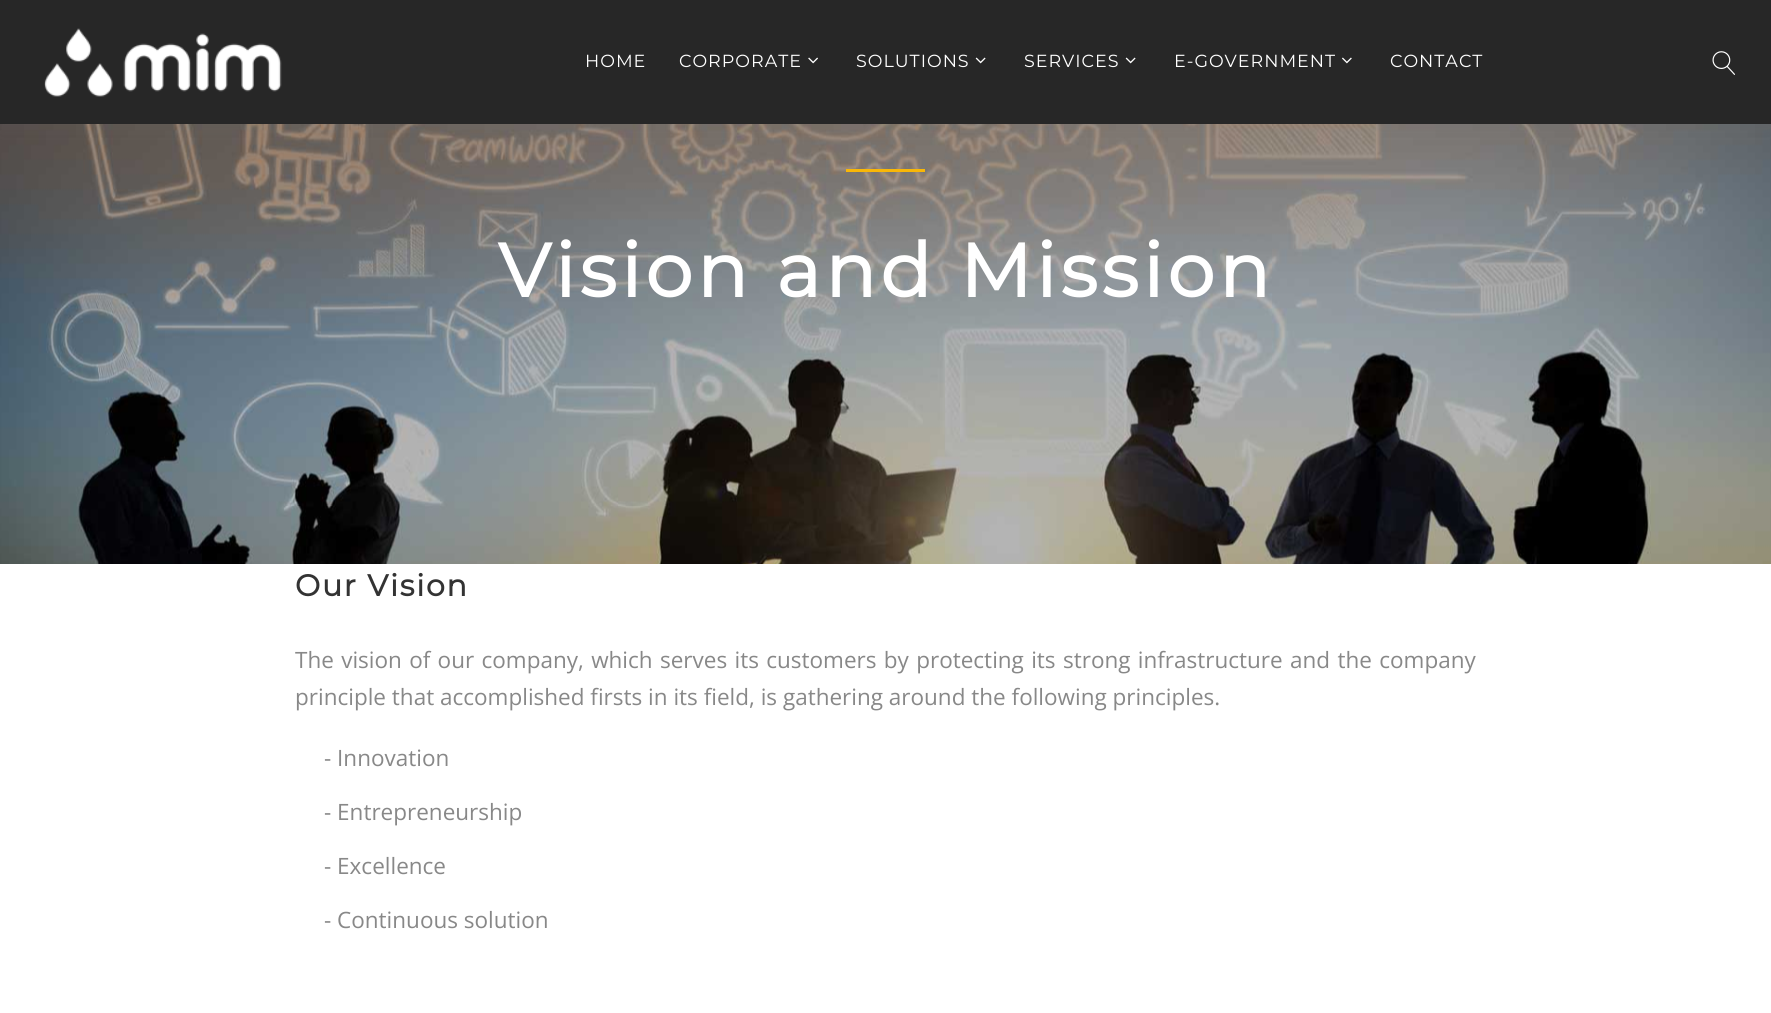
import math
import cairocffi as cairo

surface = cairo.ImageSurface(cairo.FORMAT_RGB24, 1771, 1013)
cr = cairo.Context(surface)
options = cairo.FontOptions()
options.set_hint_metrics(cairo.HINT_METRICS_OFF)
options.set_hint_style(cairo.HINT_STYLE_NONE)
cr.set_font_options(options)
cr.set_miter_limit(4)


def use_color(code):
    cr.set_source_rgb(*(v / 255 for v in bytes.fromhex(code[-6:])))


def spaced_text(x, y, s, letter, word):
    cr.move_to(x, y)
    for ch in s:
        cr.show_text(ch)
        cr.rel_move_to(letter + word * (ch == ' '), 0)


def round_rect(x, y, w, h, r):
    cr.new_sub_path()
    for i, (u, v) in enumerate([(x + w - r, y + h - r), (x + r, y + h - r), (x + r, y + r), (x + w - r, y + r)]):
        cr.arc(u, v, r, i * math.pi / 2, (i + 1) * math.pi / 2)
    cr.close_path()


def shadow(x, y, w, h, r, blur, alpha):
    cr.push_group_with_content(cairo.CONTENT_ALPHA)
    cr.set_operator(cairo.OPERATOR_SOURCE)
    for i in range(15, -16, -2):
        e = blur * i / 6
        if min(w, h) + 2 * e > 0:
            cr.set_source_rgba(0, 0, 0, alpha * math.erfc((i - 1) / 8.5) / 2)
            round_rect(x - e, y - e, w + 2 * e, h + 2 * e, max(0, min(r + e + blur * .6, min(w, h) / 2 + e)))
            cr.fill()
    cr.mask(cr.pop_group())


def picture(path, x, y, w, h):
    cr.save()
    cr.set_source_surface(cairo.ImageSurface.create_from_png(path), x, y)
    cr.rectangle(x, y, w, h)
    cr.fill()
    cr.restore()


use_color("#ffffff")
cr.paint()
picture("img6.png", 0, 124, 1771, 440)
use_color("#888888")
shadow(0, 3, 1771, 123, 0, 7.5, 0.1)
use_color("#272727")
cr.rectangle(0, 0, 1771, 124)
cr.fill()
picture("img1.png", 44, 28, 238, 69)
cr.select_font_face("Montserrat Thin")
cr.set_font_size(17.5)
use_color("#ffffff")
spaced_text(585, 67, "HOME", 1, 0)
spaced_text(679, 67, "CORPORATE", 1, 0)
picture("img2.png", 808, 57, 10, 7)
spaced_text(856, 67, "SOLUTIONS", 1, 0)
picture("img3.png", 975, 57, 11, 7)
spaced_text(1024, 67, "SERVICES", 1, 0)
picture("img3.png", 1125, 57, 11, 7)
spaced_text(1174, 67, "E-GOVERNMENT", 1, 0)
picture("img4.png", 1342, 57, 10, 7)
spaced_text(1390, 67, "CONTACT", 1, 0)
picture("img5.png", 1712, 51, 23, 24)
use_color("#f9b707")
cr.rectangle(846, 169, 79, 3)
cr.fill()
cr.select_font_face("Montserrat", cairo.FONT_SLANT_NORMAL, cairo.FONT_WEIGHT_BOLD)
cr.set_font_size(75)
use_color("#ffffff")
spaced_text(498, 297, "Vision and Mission", 4.5, 0)
cr.set_font_size(30)
use_color("#333333")
spaced_text(295, 596, "Our Vision", 1.75, 0)
cr.select_font_face("Open Sans")
cr.set_font_size(22.5)
use_color("#888888")
spaced_text(295, 668, "The vision of our company, which serves its customers by protecting its strong infrastructure and the company", 0, 1.5)
cr.move_to(295, 705)
cr.show_text("principle that accomplished firsts in its field, is gathering around the following principles.")
cr.move_to(324, 766)
cr.show_text("- Innovation")
cr.move_to(324, 820)
cr.show_text("- Entrepreneurship")
cr.move_to(324, 874)
cr.show_text("- Excellence")
cr.move_to(324, 928)
cr.show_text("- Continuous solution")
surface.write_to_png("result.png")
